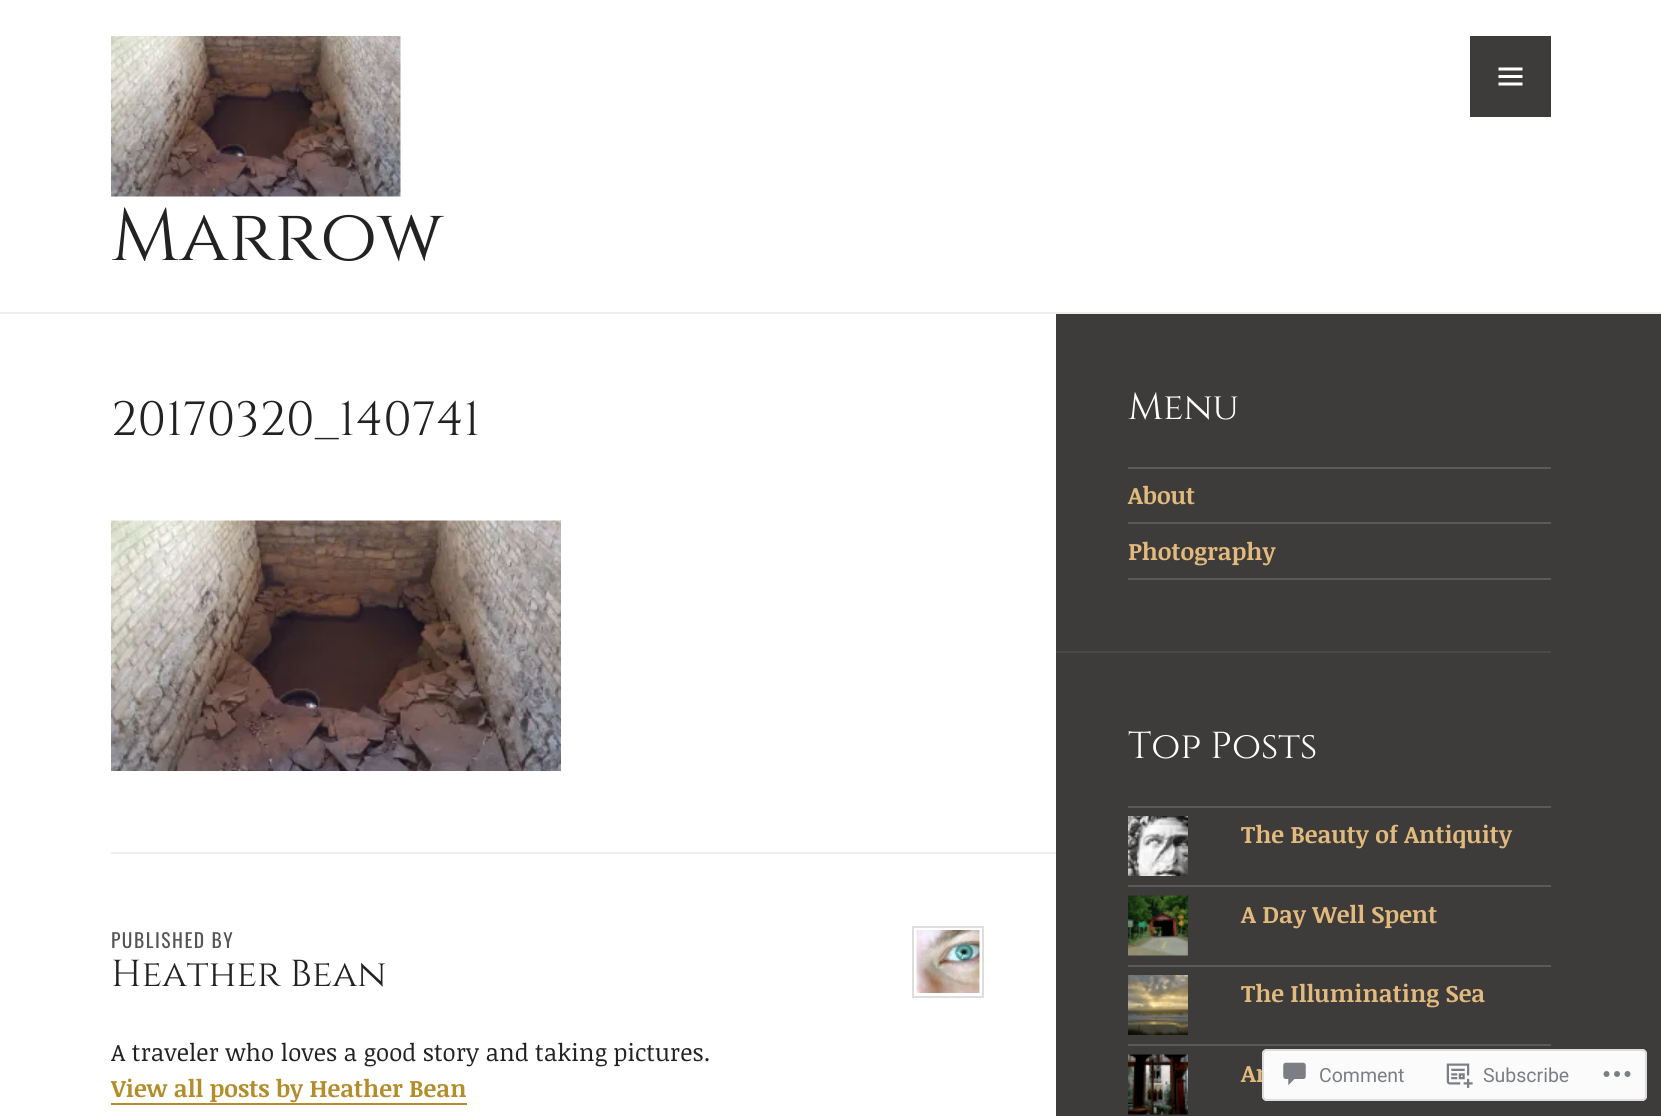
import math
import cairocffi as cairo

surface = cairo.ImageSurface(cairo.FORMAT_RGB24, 1661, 1116)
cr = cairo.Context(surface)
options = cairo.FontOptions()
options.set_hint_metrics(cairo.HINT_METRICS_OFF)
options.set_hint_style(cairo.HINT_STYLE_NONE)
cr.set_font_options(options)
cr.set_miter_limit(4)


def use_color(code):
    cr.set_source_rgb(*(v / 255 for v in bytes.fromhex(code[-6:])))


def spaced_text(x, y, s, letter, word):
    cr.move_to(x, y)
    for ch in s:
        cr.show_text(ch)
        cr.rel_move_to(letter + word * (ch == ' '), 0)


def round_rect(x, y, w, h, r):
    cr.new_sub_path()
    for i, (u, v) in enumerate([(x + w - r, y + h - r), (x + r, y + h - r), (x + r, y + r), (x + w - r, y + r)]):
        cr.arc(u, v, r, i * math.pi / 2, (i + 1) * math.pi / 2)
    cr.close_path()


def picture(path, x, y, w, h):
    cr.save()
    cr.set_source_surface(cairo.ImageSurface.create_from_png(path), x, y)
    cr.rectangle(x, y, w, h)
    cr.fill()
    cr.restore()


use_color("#ffffff")
cr.paint()
use_color("#3e3b3b")
cr.rectangle(1470, 36, 81, 81)
cr.fill()
picture("img1.png", 1498, 67, 25, 19)
use_color("#eeeeee")
cr.rectangle(0, 312, 1661, 2)
cr.fill()
picture("img2.png", 111, 36, 290, 161)
cr.select_font_face("Cinzel")
cr.set_font_size(73.5)
use_color("#222222")
cr.move_to(111, 260)
cr.show_text("Marrow")
use_color("#3e3b3b")
cr.rectangle(1056, 314, 605, 802)
cr.fill()
cr.set_font_size(48)
use_color("#222222")
cr.move_to(111, 435)
cr.show_text("20170320_140741")
picture("img3.png", 111, 520, 450, 251)
use_color("#eeeeee")
cr.rectangle(111, 852, 945, 2)
cr.fill()
cr.select_font_face("Oswald")
cr.set_font_size(19.5)
use_color("#555555")
spaced_text(111, 948, "PUBLISHED BY", 1.5, 0)
cr.select_font_face("Cinzel")
cr.set_font_size(37.5)
use_color("#222222")
cr.move_to(111, 986)
cr.show_text("Heather Bean")
cr.rectangle(913, 927, 70, 70)
use_color("#dddddd")
cr.stroke()
picture("img4.png", 916, 930, 64, 63)
cr.select_font_face("Noticia Text")
cr.set_font_size(24)
use_color("#222222")
cr.move_to(111, 1061)
cr.show_text("A traveler who loves a good story and taking pictures.")
cr.select_font_face("Noticia Text", cairo.FONT_SLANT_NORMAL, cairo.FONT_WEIGHT_BOLD)
use_color("#b48d2b")
cr.move_to(111, 1097)
cr.show_text("View all posts by Heather Bean")
cr.rectangle(111, 1103, 356, 2)
cr.fill()
use_color("#4b4848")
cr.rectangle(1056, 651, 495, 2)
cr.fill()
cr.select_font_face("Cinzel")
cr.set_font_size(37.5)
use_color("#ffffff")
cr.move_to(1128, 419)
cr.show_text("Menu")
use_color("#5e5959")
cr.rectangle(1128, 578, 423, 2)
cr.fill()
cr.rectangle(1128, 467, 423, 2)
cr.fill()
cr.select_font_face("Noticia Text", cairo.FONT_SLANT_NORMAL, cairo.FONT_WEIGHT_BOLD)
cr.set_font_size(24)
use_color("#e2ba7d")
cr.move_to(1128, 504)
cr.show_text("About")
use_color("#5e5959")
cr.rectangle(1128, 522, 423, 2)
cr.fill()
use_color("#e2ba7d")
cr.move_to(1128, 560)
cr.show_text("Photography")
cr.select_font_face("Cinzel")
cr.set_font_size(37.5)
use_color("#ffffff")
cr.move_to(1128, 758)
cr.show_text("Top Posts")
use_color("#5e5959")
cr.rectangle(1128, 806, 423, 2)
cr.fill()
picture("img5.png", 1128, 816, 60, 60)
cr.select_font_face("Noticia Text", cairo.FONT_SLANT_NORMAL, cairo.FONT_WEIGHT_BOLD)
cr.set_font_size(24)
use_color("#e2ba7d")
cr.move_to(1241, 843)
cr.show_text("The Beauty of Antiquity")
use_color("#5e5959")
cr.rectangle(1128, 885, 423, 2)
cr.fill()
picture("img6.png", 1128, 895, 60, 61)
use_color("#e2ba7d")
cr.move_to(1241, 923)
cr.show_text("A Day Well Spent")
use_color("#5e5959")
cr.rectangle(1128, 965, 423, 2)
cr.fill()
picture("img7.png", 1128, 975, 60, 60)
use_color("#e2ba7d")
cr.move_to(1241, 1002)
cr.show_text("The Illuminating Sea")
use_color("#5e5959")
cr.rectangle(1128, 1044, 423, 2)
cr.fill()
picture("img8.png", 1128, 1054, 60, 61)
use_color("#e2ba7d")
cr.move_to(1241, 1082)
cr.show_text("Ar")
cr.set_source_rgba(1, 1, 1, 0.98)
round_rect(1262, 1049, 385, 52, 5)
cr.fill()
round_rect(1263, 1050, 383, 50, 4)
cr.set_source_rgba(0.863, 0.863, 0.871, 0.98)
cr.stroke()
picture("img9.png", 1283, 1062, 23, 24)
cr.select_font_face("Roboto")
cr.set_font_size(19.5)
use_color("#7b7f84")
cr.move_to(1319, 1082)
cr.show_text("Comment")
picture("img10.png", 1446, 1063, 27, 25)
cr.move_to(1483, 1082)
cr.show_text("Subscribe")
picture("img11.png", 1603, 1071, 28, 6)
surface.write_to_png("result.png")
